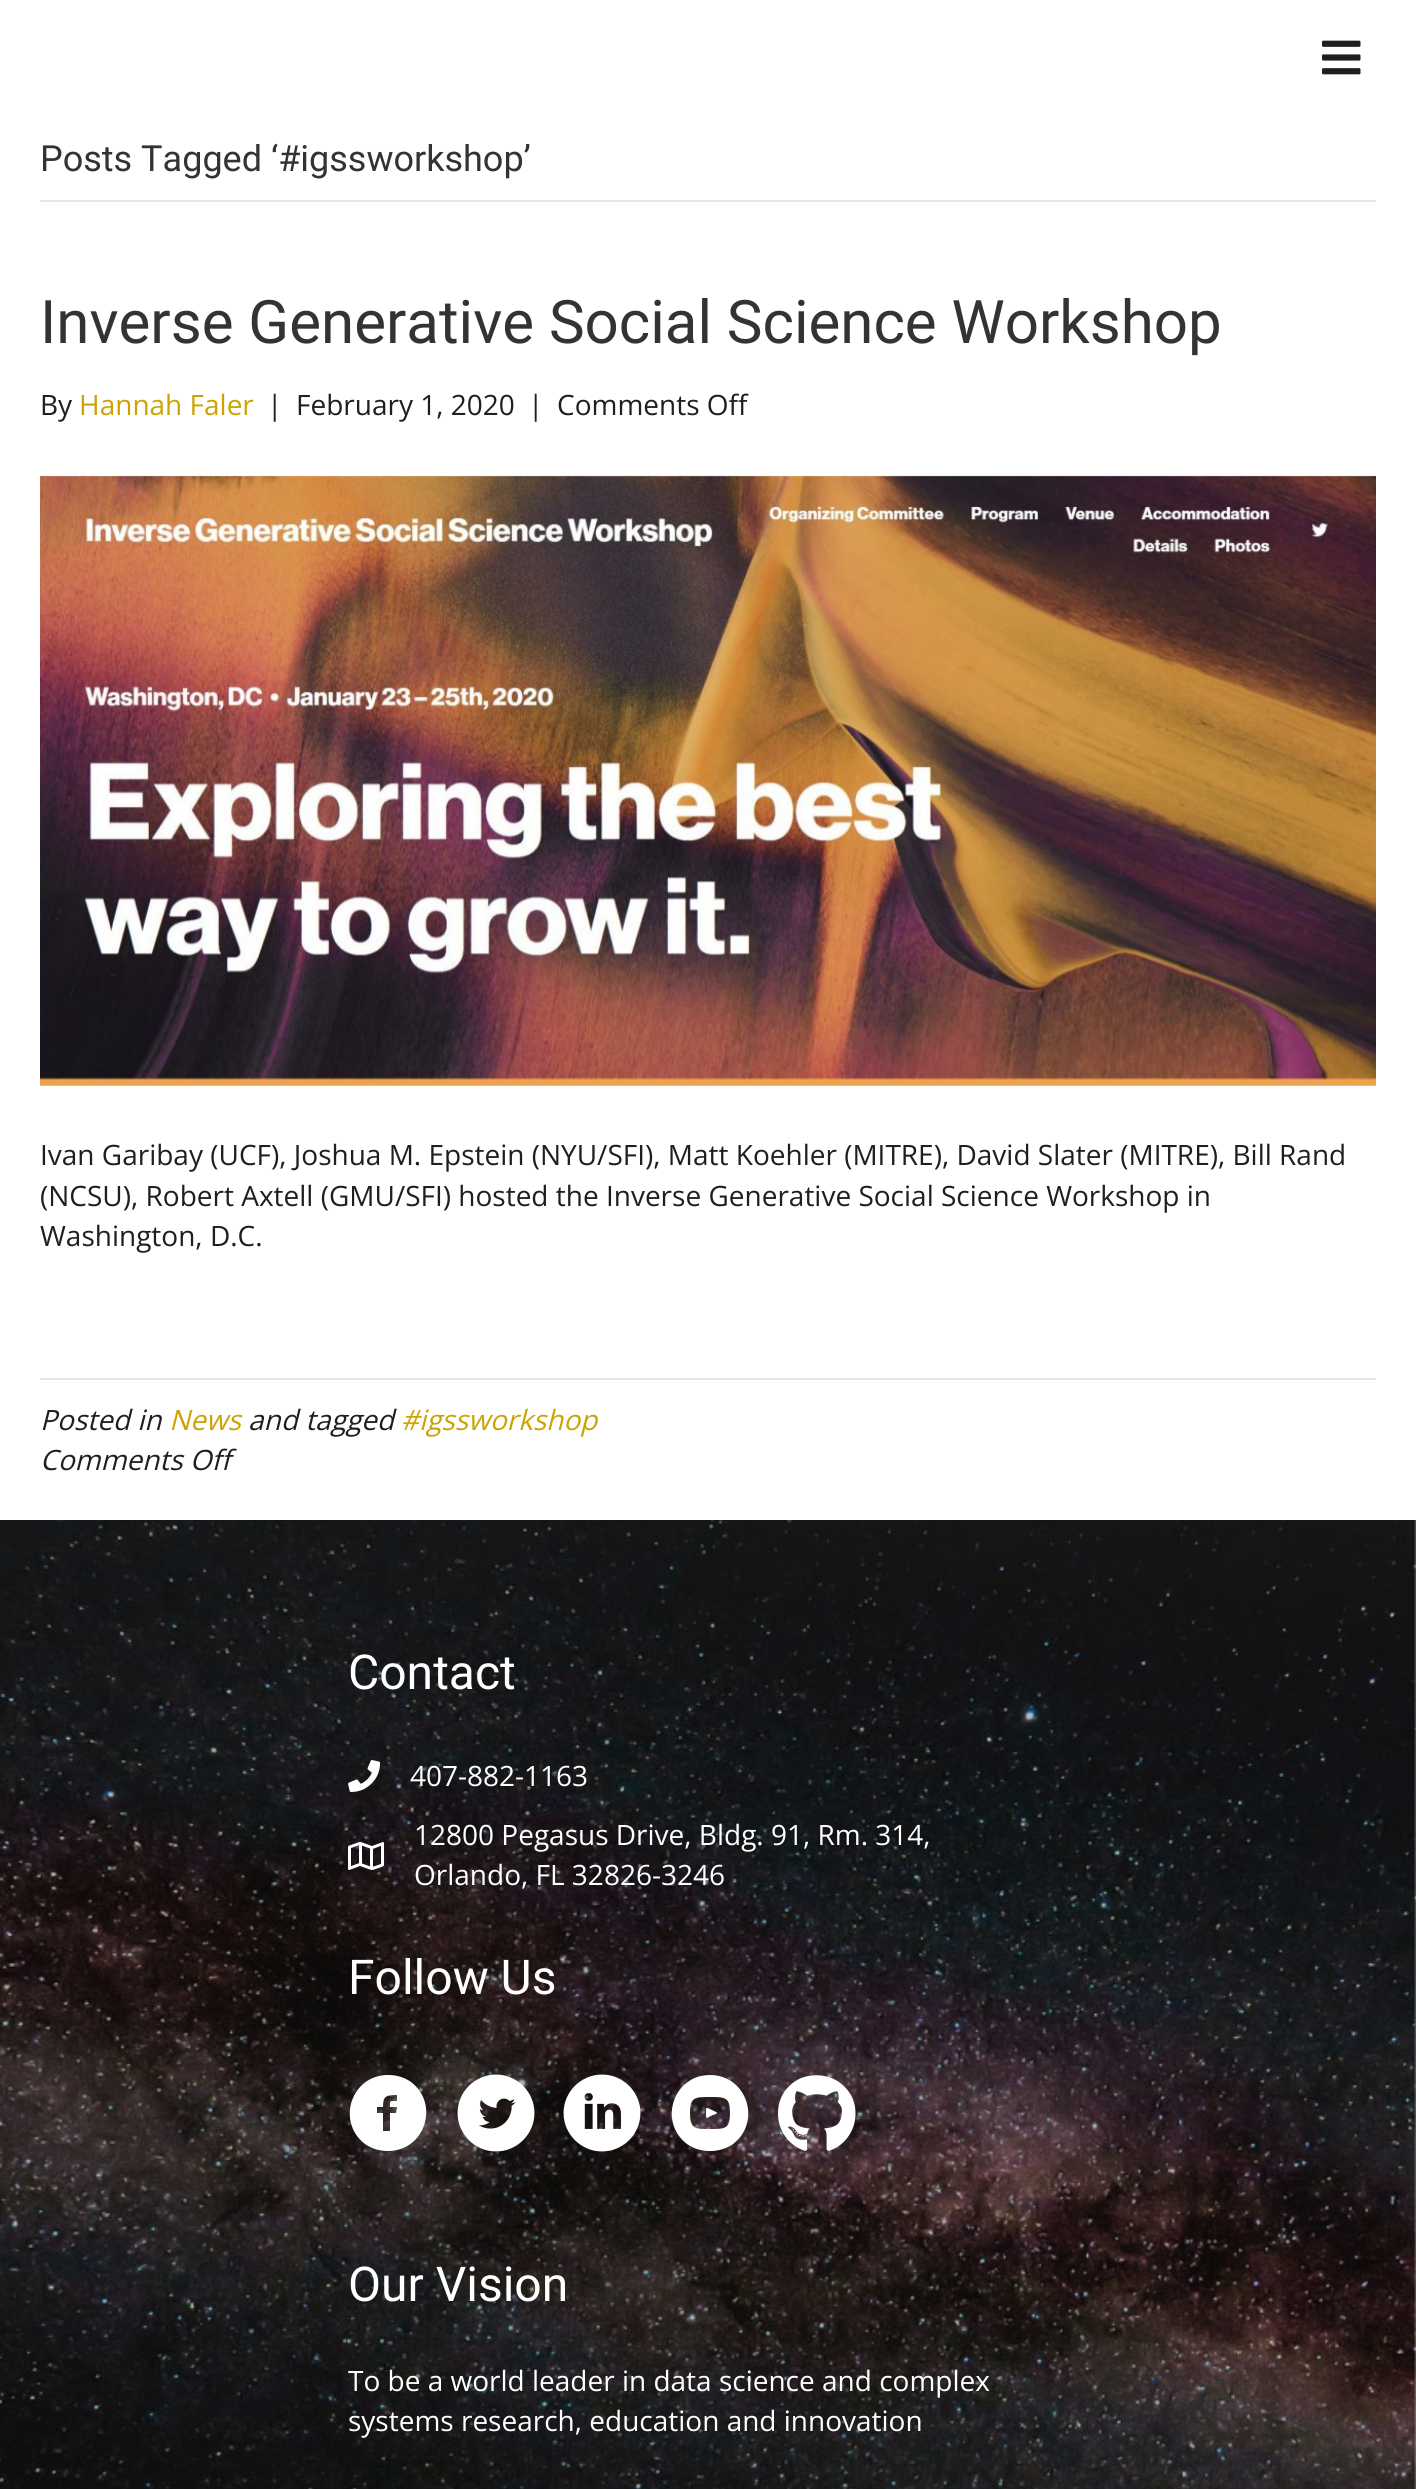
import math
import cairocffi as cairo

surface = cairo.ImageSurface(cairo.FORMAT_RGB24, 1416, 2489)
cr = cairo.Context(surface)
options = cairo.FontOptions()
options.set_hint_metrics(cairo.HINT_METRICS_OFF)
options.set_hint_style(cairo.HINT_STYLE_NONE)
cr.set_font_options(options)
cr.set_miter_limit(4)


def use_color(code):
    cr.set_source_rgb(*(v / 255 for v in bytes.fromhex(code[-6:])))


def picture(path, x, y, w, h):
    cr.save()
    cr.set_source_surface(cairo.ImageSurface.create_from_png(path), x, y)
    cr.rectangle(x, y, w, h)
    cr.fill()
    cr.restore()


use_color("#ffffff")
cr.paint()
picture("img1.png", 1322, 40, 39, 35)
use_color("#e6e6e6")
cr.rectangle(40, 200, 1336, 2)
cr.fill()
cr.select_font_face("Roboto")
cr.set_font_size(36)
use_color("#333333")
cr.move_to(40, 171)
cr.show_text("Posts Tagged ‘#igssworkshop’")
cr.set_font_size(60)
cr.move_to(40, 343)
cr.show_text("Inverse Generative Social Science Workshop")
cr.select_font_face("Open Sans")
cr.set_font_size(28)
use_color("#221e1f")
cr.move_to(40, 415)
cr.show_text("By")
use_color("#cca300")
cr.move_to(79, 415)
cr.show_text("Hannah Faler")
use_color("#221e1f")
cr.move_to(267, 415)
cr.show_text("|")
cr.move_to(296, 415)
cr.show_text("February 1, 2020")
cr.move_to(528, 415)
cr.show_text("|")
cr.move_to(557, 415)
cr.show_text("Comments Off")
picture("img2.png", 40, 475, 1336, 611)
cr.move_to(40, 1165)
cr.show_text("Ivan Garibay (UCF), Joshua M. Epstein (NYU/SFI), Matt Koehler (MITRE), David Slater (MITRE), Bill Rand")
cr.move_to(40, 1206)
cr.show_text("(NCSU), Robert Axtell (GMU/SFI) hosted the Inverse Generative Social Science Workshop in")
cr.move_to(40, 1246)
cr.show_text("Washington, D.C.")
use_color("#e6e6e6")
cr.rectangle(40, 1378, 1336, 2)
cr.fill()
cr.select_font_face("Open Sans", cairo.FONT_SLANT_ITALIC)
use_color("#221e1f")
cr.move_to(40, 1430)
cr.show_text("Posted in")
use_color("#cca300")
cr.move_to(169, 1430)
cr.show_text("News")
use_color("#221e1f")
cr.move_to(248, 1430)
cr.show_text("and tagged")
use_color("#cca300")
cr.move_to(401, 1430)
cr.show_text("#igssworkshop")
use_color("#221e1f")
cr.move_to(40, 1470)
cr.show_text("Comments Off")
picture("img3.png", 0, 1520, 1416, 969)
cr.select_font_face("Roboto")
cr.set_font_size(48)
use_color("#ffffff")
cr.move_to(348, 1689)
cr.show_text("Contact")
picture("img4.png", 348, 1760, 33, 32)
cr.select_font_face("Open Sans")
cr.set_font_size(28)
cr.move_to(410, 1786)
cr.show_text("407-882-1163")
picture("img5.png", 348, 1842, 36, 28)
cr.move_to(414, 1845)
cr.show_text("12800 Pegasus Drive, Bldg. 91, Rm. 314,")
cr.move_to(414, 1885)
cr.show_text("Orlando, FL 32826-3246")
cr.select_font_face("Roboto")
cr.set_font_size(48)
cr.move_to(348, 1994)
cr.show_text("Follow Us")
cr.new_path()
cr.move_to(388, 2075)
cr.curve_to(351, 2075, 336, 2122, 365, 2144)
cr.curve_to(372, 2149, 380, 2151, 388, 2151)
cr.curve_to(425, 2151, 440, 2104, 411, 2082)
cr.curve_to(404, 2077, 396, 2075, 388, 2075)
cr.close_path()
cr.move_to(397, 2101)
cr.curve_to(389, 2101, 390, 2100, 390, 2107)
cr.line_to(397, 2107)
cr.line_to(396, 2113)
cr.line_to(390, 2113)
cr.line_to(390, 2131)
cr.line_to(383, 2131)
cr.line_to(383, 2113)
cr.line_to(377, 2113)
cr.line_to(377, 2107)
cr.line_to(383, 2107)
cr.curve_to(383, 2096, 386, 2095, 397, 2095)
cr.close_path()
cr.fill()
picture("img6.png", 457, 2074, 78, 78)
picture("img7.png", 563, 2074, 78, 78)
cr.new_path()
cr.move_to(716, 2112)
cr.curve_to(705, 2107, 706, 2105, 706, 2115)
cr.curve_to(706, 2116, 706, 2118, 707, 2118)
cr.line_to(713, 2115)
cr.curve_to(714, 2115, 719, 2113, 716, 2112)
cr.close_path()
cr.move_to(710, 2075)
cr.curve_to(673, 2075, 658, 2122, 687, 2144)
cr.curve_to(694, 2149, 702, 2151, 710, 2151)
cr.curve_to(718, 2151, 726, 2149, 733, 2144)
cr.curve_to(762, 2122, 747, 2075, 710, 2075)
cr.close_path()
cr.move_to(710, 2129)
cr.curve_to(695, 2129, 690, 2129, 690, 2113)
cr.curve_to(690, 2097, 695, 2097, 710, 2097)
cr.curve_to(725, 2097, 730, 2097, 730, 2113)
cr.curve_to(730, 2129, 725, 2129, 710, 2129)
cr.close_path()
cr.fill()
picture("img8.png", 778, 2075, 78, 76)
cr.move_to(348, 2301)
cr.show_text("Our Vision")
cr.select_font_face("Open Sans")
cr.set_font_size(28)
cr.move_to(348, 2391)
cr.show_text("To be a world leader in data science and complex")
cr.move_to(348, 2431)
cr.show_text("systems research, education and innovation")
surface.write_to_png("result.png")
